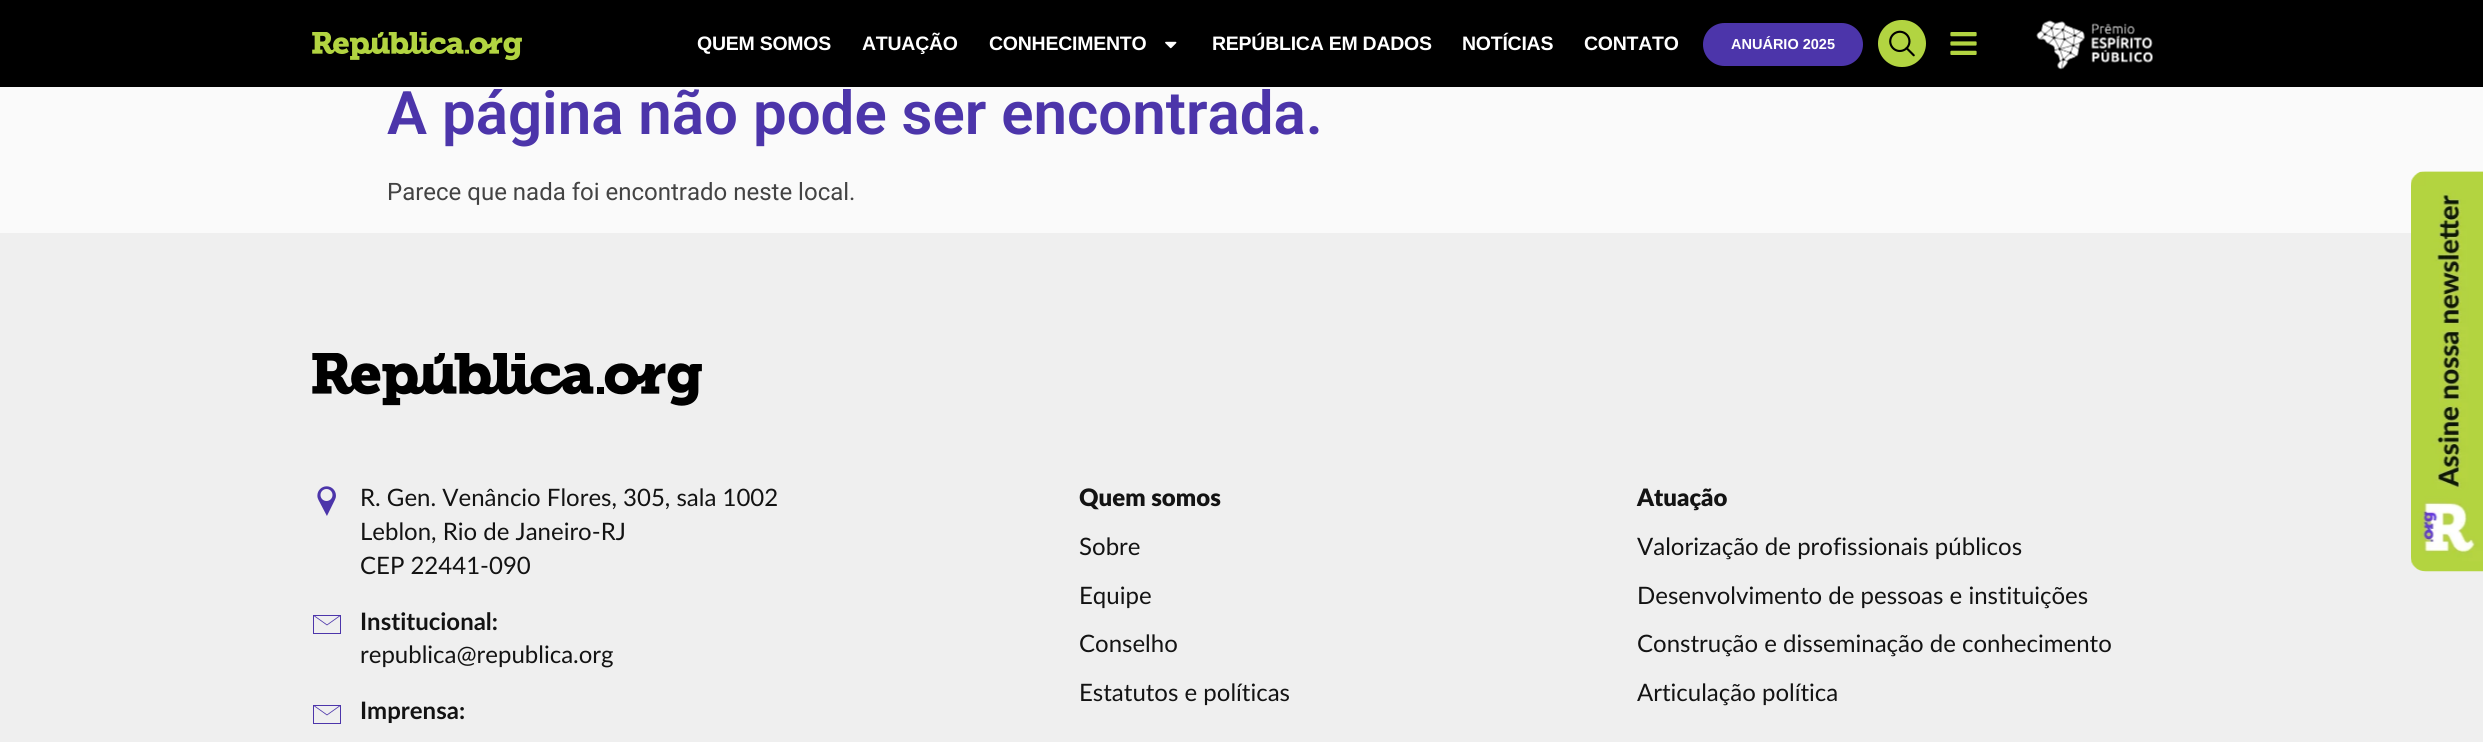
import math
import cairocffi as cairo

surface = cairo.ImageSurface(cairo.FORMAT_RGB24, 2483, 742)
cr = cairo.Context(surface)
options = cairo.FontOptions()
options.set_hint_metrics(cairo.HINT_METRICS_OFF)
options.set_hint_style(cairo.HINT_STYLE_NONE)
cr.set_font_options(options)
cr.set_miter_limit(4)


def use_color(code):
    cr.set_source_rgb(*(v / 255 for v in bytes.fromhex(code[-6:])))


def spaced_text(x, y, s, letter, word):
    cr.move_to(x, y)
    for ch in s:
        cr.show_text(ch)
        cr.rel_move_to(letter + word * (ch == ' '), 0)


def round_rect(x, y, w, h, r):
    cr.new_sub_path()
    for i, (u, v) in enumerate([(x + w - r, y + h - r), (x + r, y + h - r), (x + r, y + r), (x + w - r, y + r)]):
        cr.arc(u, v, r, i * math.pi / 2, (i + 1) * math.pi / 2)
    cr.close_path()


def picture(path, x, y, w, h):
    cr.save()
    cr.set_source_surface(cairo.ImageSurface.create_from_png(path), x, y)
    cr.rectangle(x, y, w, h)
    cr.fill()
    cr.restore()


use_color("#fafafa")
cr.paint()
use_color("#000000")
cr.rectangle(0, 0, 2483, 87)
cr.fill()
picture("img1.png", 312, 32, 210, 29)
cr.select_font_face("Liberation Sans", cairo.FONT_SLANT_NORMAL, cairo.FONT_WEIGHT_BOLD)
cr.set_font_size(19.5)
use_color("#ffffff")
spaced_text(697, 50, "QUEM SOMOS", -0.25, 0)
spaced_text(862, 50, "ATUAÇÃO", -0.25, 0)
spaced_text(989, 50, "CONHECIMENTO", -0.25, 0)
picture("img2.png", 1165, 41, 12, 8)
spaced_text(1212, 50, "REPÚBLICA EM DADOS", -0.25, 0)
spaced_text(1462, 50, "NOTÍCIAS", -0.25, 0)
spaced_text(1584, 50, "CONTATO", -0.25, 0)
use_color("#4c35aa")
round_rect(1703, 23, 160, 43, 21.5)
cr.fill()
cr.set_font_size(14.5)
use_color("#ffffff")
cr.move_to(1731, 49)
cr.show_text("ANUÁRIO 2025")
picture("img3.png", 1878, 20, 48, 47)
picture("img4.png", 1950, 32, 27, 23)
picture("img5.png", 2036, 20, 117, 50)
use_color("#efefef")
cr.rectangle(0, 233, 2483, 509)
cr.fill()
picture("img6.png", 2411, 171, 72, 401)
cr.select_font_face("Roboto SemiBold")
cr.set_font_size(60)
use_color("#4c35aa")
cr.move_to(387, 134)
cr.show_text("A página não pode ser encontrada.")
cr.select_font_face("Roboto")
cr.set_font_size(24)
use_color("#434343")
cr.move_to(387, 200)
cr.show_text("Parece que nada foi encontrado neste local.")
picture("img7.png", 312, 353, 390, 53)
picture("img8.png", 317, 486, 19, 30)
cr.select_font_face("Lato")
use_color("#131313")
cr.move_to(360, 506)
cr.show_text("R. Gen. Venâncio Flores, 305, sala 1002")
cr.move_to(360, 540)
cr.show_text("Leblon, Rio de Janeiro-RJ")
cr.move_to(360, 574)
cr.show_text("CEP 22441-090")
picture("img9.png", 313, 615, 28, 19)
cr.select_font_face("Lato", cairo.FONT_SLANT_NORMAL, cairo.FONT_WEIGHT_BOLD)
cr.move_to(360, 630)
cr.show_text("Institucional:")
cr.select_font_face("Lato")
cr.move_to(360, 663)
cr.show_text("republica@republica.org")
picture("img9.png", 313, 705, 28, 19)
cr.select_font_face("Lato", cairo.FONT_SLANT_NORMAL, cairo.FONT_WEIGHT_BOLD)
cr.move_to(360, 719)
cr.show_text("Imprensa:")
cr.select_font_face("Lato ExtraBold")
cr.move_to(1079, 506)
cr.show_text("Quem somos")
cr.select_font_face("Lato")
cr.move_to(1079, 555)
cr.show_text("Sobre")
cr.move_to(1079, 604)
cr.show_text("Equipe")
cr.move_to(1079, 652)
cr.show_text("Conselho")
cr.move_to(1079, 701)
cr.show_text("Estatutos e políticas")
cr.select_font_face("Lato ExtraBold")
cr.move_to(1637, 506)
cr.show_text("Atuação")
cr.select_font_face("Lato")
cr.move_to(1637, 555)
cr.show_text("Valorização de profissionais públicos")
cr.move_to(1637, 604)
cr.show_text("Desenvolvimento de pessoas e instituições")
cr.move_to(1637, 652)
cr.show_text("Construção e disseminação de conhecimento")
cr.move_to(1637, 701)
cr.show_text("Articulação política")
surface.write_to_png("result.png")
